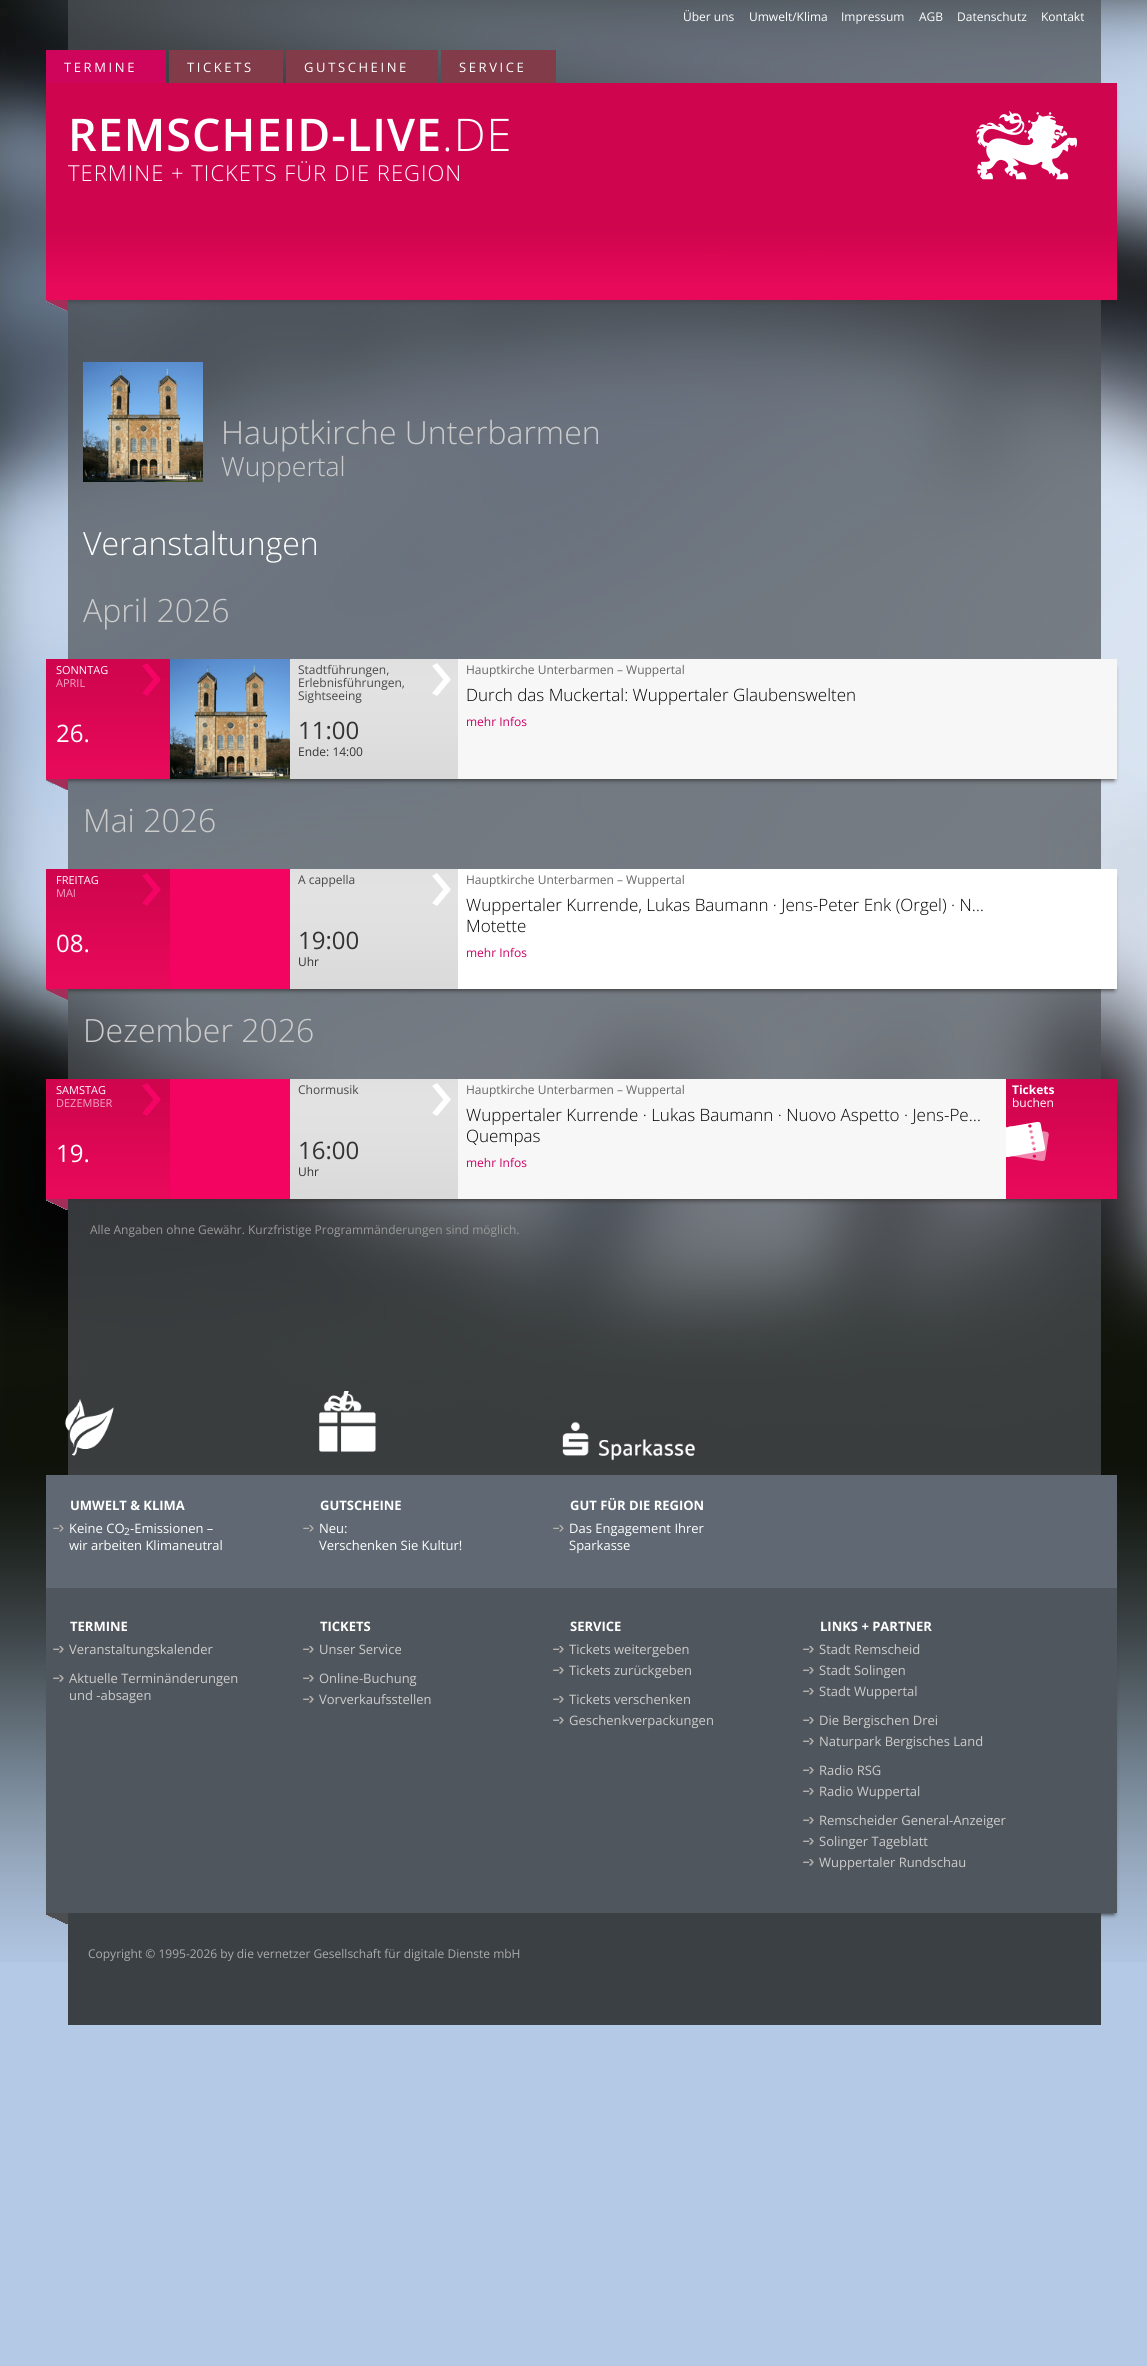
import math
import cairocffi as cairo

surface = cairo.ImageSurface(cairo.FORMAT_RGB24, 1147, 2366)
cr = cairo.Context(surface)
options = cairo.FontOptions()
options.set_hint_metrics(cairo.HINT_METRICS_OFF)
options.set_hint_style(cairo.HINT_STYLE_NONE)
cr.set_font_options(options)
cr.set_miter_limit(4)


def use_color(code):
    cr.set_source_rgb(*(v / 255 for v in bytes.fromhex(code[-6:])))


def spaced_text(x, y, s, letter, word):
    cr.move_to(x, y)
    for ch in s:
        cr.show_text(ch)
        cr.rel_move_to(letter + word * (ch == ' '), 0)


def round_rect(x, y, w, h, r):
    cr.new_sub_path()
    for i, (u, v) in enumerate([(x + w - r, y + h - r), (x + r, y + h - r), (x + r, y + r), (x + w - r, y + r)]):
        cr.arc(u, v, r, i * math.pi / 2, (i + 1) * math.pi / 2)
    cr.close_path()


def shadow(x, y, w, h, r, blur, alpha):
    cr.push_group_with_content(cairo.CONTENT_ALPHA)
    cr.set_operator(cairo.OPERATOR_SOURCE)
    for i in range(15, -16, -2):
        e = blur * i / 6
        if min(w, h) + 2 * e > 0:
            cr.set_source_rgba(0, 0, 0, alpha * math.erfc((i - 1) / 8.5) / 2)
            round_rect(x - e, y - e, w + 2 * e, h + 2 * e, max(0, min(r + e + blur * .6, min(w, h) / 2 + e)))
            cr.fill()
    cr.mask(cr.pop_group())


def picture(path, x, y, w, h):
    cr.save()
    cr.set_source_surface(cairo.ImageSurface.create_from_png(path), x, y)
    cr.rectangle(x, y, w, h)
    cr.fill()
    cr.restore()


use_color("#b3c9e5")
cr.paint()
picture("img1.png", 0, 0, 1147, 1962)
cr.set_source_rgba(0.298, 0.318, 0.333, 0.7)
cr.rectangle(68, 0, 1033, 54)
cr.fill()
cr.select_font_face("Open Sans")
cr.set_font_size(12)
use_color("#ffffff")
cr.move_to(683, 21)
cr.show_text("Über uns")
cr.move_to(749, 21)
cr.show_text("Umwelt/Klima")
cr.move_to(841, 21)
cr.show_text("Impressum")
cr.move_to(919, 21)
cr.show_text("AGB")
cr.move_to(957, 21)
cr.show_text("Datenschutz")
cr.move_to(1041, 21)
cr.show_text("Kontakt")
cr.set_source_rgba(0.298, 0.318, 0.333, 0.7)
cr.rectangle(166, 54, 935, 29)
cr.fill()
use_color("#cf055b")
cr.rectangle(46, 50, 120, 33)
cr.fill()
cr.set_font_size(13)
use_color("#ffffff")
spaced_text(64, 72, "TERMINE", 2.6, 0)
use_color("#823b48")
cr.rectangle(169, 50, 114, 33)
cr.fill()
use_color("#ffffff")
spaced_text(187, 72, "TICKETS", 2.6, 0)
use_color("#823b48")
cr.rectangle(286, 50, 152, 33)
cr.fill()
use_color("#ffffff")
spaced_text(304, 72, "GUTSCHEINE", 2.6, 0)
use_color("#823b48")
cr.rectangle(441, 50, 115, 33)
cr.fill()
use_color("#ffffff")
spaced_text(459, 72, "SERVICE", 2.6, 0)
use_color("#222222")
shadow(51, 92, 1063, 125, 0, 2.5, 1)
use_color("#cf054e")
cr.rectangle(46, 83, 1071, 133)
cr.fill()
cr.select_font_face("Open Sans SemiBold")
cr.set_font_size(45)
use_color("#ffffff")
spaced_text(68, 151, "REMSCHEID-LIVE", 1, 0)
cr.select_font_face("Open Sans Light")
spaced_text(442, 151, ".DE", 1, 0)
cr.set_font_size(22)
spaced_text(68, 181, "TERMINE + TICKETS FÜR DIE REGION", 1, 0)
picture("img2.png", 976, 110, 102, 70)
use_color("#222222")
shadow(51, 225, 1063, 76, 0, 2.5, 1)
picture("img3.png", 46, 216, 1071, 84)
picture("img4.png", 46, 300, 22, 11)
cr.set_source_rgba(0.298, 0.318, 0.333, 0.7)
cr.rectangle(68, 300, 1033, 981)
cr.fill()
picture("img5.png", 83, 362, 120, 120)
cr.set_font_size(32)
use_color("#cccccc")
cr.move_to(221, 444)
cr.show_text("Hauptkirche Unterbarmen")
cr.set_font_size(26.5)
cr.move_to(221, 476)
cr.show_text("Wuppertal")
cr.set_font_size(32)
use_color("#ffffff")
cr.move_to(83, 555)
cr.show_text("Veranstaltungen")
use_color("#cccccc")
cr.move_to(83, 622)
cr.show_text("April 2026")
use_color("#333333")
shadow(51, 668, 1063, 112, 0, 2.5, 1)
picture("img6.png", 458, 659, 659, 120)
picture("img7.png", 46, 659, 124, 131)
cr.select_font_face("Open Sans")
cr.set_font_size(11)
use_color("#ffffff")
cr.move_to(56, 674)
cr.show_text("SONNTAG")
use_color("#f2a5c8")
cr.move_to(56, 687)
cr.show_text("APRIL")
cr.set_font_size(24)
use_color("#ffffff")
cr.move_to(56, 742)
cr.show_text("26.")
picture("img8.png", 170, 659, 120, 120)
use_color("#e0e0e0")
cr.rectangle(290, 659, 168, 4)
cr.fill()
picture("img9.png", 290, 663, 168, 116)
cr.set_font_size(12)
use_color("#474747")
cr.move_to(298, 674)
cr.show_text("Stadtführungen,")
cr.move_to(298, 687)
cr.show_text("Erlebnisführungen,")
cr.move_to(298, 700)
cr.show_text("Sightseeing")
cr.set_font_size(24)
use_color("#333333")
cr.move_to(298, 739)
cr.show_text("11:00")
cr.set_font_size(12)
cr.move_to(298, 756)
cr.show_text("Ende: 14:00")
use_color("#666666")
cr.move_to(466, 674)
cr.show_text("Hauptkirche Unterbarmen – Wuppertal")
cr.select_font_face("Open Sans Light")
cr.set_font_size(17)
use_color("#000000")
cr.move_to(466, 701)
cr.show_text("Durch das Muckertal: Wuppertaler Glaubenswelten")
cr.select_font_face("Open Sans")
cr.set_font_size(12)
use_color("#cc0066")
cr.move_to(466, 726)
cr.show_text("mehr Infos")
cr.select_font_face("Open Sans Light")
cr.set_font_size(32)
use_color("#cccccc")
cr.move_to(83, 832)
cr.show_text("Mai 2026")
use_color("#333333")
shadow(51, 878, 1063, 112, 0, 2.5, 1)
picture("img10.png", 458, 869, 659, 120)
picture("img11.png", 46, 869, 124, 131)
cr.select_font_face("Open Sans")
cr.set_font_size(11)
use_color("#ffffff")
cr.move_to(56, 884)
cr.show_text("FREITAG")
use_color("#f2a5c8")
cr.move_to(56, 897)
cr.show_text("MAI")
cr.set_font_size(24)
use_color("#ffffff")
cr.move_to(56, 952)
cr.show_text("08.")
use_color("#f30460")
cr.rectangle(170, 869, 120, 120)
cr.fill()
use_color("#e0e0e0")
cr.rectangle(290, 869, 168, 4)
cr.fill()
picture("img9.png", 290, 873, 168, 116)
cr.set_font_size(12)
use_color("#474747")
cr.move_to(298, 884)
cr.show_text("A cappella")
cr.set_font_size(24)
use_color("#333333")
cr.move_to(298, 949)
cr.show_text("19:00")
cr.set_font_size(12)
cr.move_to(298, 966)
cr.show_text("Uhr")
use_color("#666666")
cr.move_to(466, 884)
cr.show_text("Hauptkirche Unterbarmen – Wuppertal")
cr.select_font_face("Open Sans Light")
cr.set_font_size(17)
use_color("#000000")
cr.move_to(466, 911)
cr.show_text("Wuppertaler Kurrende, Lukas Baumann · Jens-Peter Enk (Orgel) · N…")
cr.move_to(466, 932)
cr.show_text("Motette")
cr.select_font_face("Open Sans")
cr.set_font_size(12)
use_color("#cc0066")
cr.move_to(466, 957)
cr.show_text("mehr Infos")
cr.select_font_face("Open Sans Light")
cr.set_font_size(32)
use_color("#cccccc")
cr.move_to(83, 1042)
cr.show_text("Dezember 2026")
use_color("#333333")
shadow(51, 1088, 1063, 112, 0, 2.5, 1)
picture("img12.png", 458, 1079, 548, 120)
picture("img13.png", 46, 1079, 124, 131)
cr.select_font_face("Open Sans")
cr.set_font_size(11)
use_color("#ffffff")
cr.move_to(56, 1094)
cr.show_text("SAMSTAG")
use_color("#f2a5c8")
cr.move_to(56, 1107)
cr.show_text("DEZEMBER")
cr.set_font_size(24)
use_color("#ffffff")
cr.move_to(56, 1162)
cr.show_text("19.")
use_color("#f30460")
cr.rectangle(170, 1079, 120, 120)
cr.fill()
use_color("#e0e0e0")
cr.rectangle(290, 1079, 168, 4)
cr.fill()
picture("img9.png", 290, 1083, 168, 116)
cr.set_font_size(12)
use_color("#474747")
cr.move_to(298, 1094)
cr.show_text("Chormusik")
cr.set_font_size(24)
use_color("#333333")
cr.move_to(298, 1159)
cr.show_text("16:00")
cr.set_font_size(12)
cr.move_to(298, 1176)
cr.show_text("Uhr")
use_color("#666666")
cr.move_to(466, 1094)
cr.show_text("Hauptkirche Unterbarmen – Wuppertal")
cr.select_font_face("Open Sans Light")
cr.set_font_size(17)
use_color("#000000")
cr.move_to(466, 1121)
cr.show_text("Wuppertaler Kurrende · Lukas Baumann · Nuovo Aspetto · Jens-Pe…")
cr.move_to(466, 1142)
cr.show_text("Quempas")
cr.select_font_face("Open Sans")
cr.set_font_size(12)
use_color("#cc0066")
cr.move_to(466, 1167)
cr.show_text("mehr Infos")
picture("img14.png", 1006, 1079, 111, 120)
cr.select_font_face("Open Sans", cairo.FONT_SLANT_NORMAL, cairo.FONT_WEIGHT_BOLD)
use_color("#ffffff")
cr.move_to(1012, 1094)
cr.show_text("Tickets")
cr.select_font_face("Open Sans")
cr.move_to(1012, 1107)
cr.show_text("buchen")
use_color("#999999")
cr.move_to(90, 1234)
cr.show_text("Alle Angaben ohne Gewähr. Kurzfristige Programmänderungen sind möglich.")
cr.set_source_rgba(0.298, 0.318, 0.333, 0.7)
cr.rectangle(68, 1281, 1033, 194)
cr.fill()
picture("img15.png", 65, 1399, 49, 57)
picture("img16.png", 319, 1391, 57, 61)
picture("img17.png", 562, 1421, 133, 40)
use_color("#222222")
shadow(51, 1484, 1063, 105, 0, 2.5, 1)
use_color("#5f6873")
cr.rectangle(46, 1475, 1071, 113)
cr.fill()
cr.select_font_face("Open Sans", cairo.FONT_SLANT_NORMAL, cairo.FONT_WEIGHT_BOLD)
cr.set_font_size(13)
use_color("#ffffff")
cr.move_to(70, 1510)
cr.show_text("UMWELT & KLIMA")
picture("img18.png", 53, 1525, 11, 7)
cr.select_font_face("Open Sans")
cr.move_to(69, 1533)
cr.show_text("Keine CO")
cr.set_font_size(10)
cr.move_to(124, 1535)
cr.show_text("2")
cr.set_font_size(13)
cr.move_to(130, 1533)
cr.show_text("-Emissionen –")
cr.move_to(69, 1550)
cr.show_text("wir arbeiten Klimaneutral")
cr.select_font_face("Open Sans", cairo.FONT_SLANT_NORMAL, cairo.FONT_WEIGHT_BOLD)
cr.move_to(320, 1510)
cr.show_text("GUTSCHEINE")
picture("img18.png", 303, 1525, 11, 7)
cr.select_font_face("Open Sans")
cr.move_to(319, 1533)
cr.show_text("Neu:")
cr.move_to(319, 1550)
cr.show_text("Verschenken Sie Kultur!")
cr.select_font_face("Open Sans", cairo.FONT_SLANT_NORMAL, cairo.FONT_WEIGHT_BOLD)
cr.move_to(570, 1510)
cr.show_text("GUT FÜR DIE REGION")
picture("img18.png", 553, 1525, 11, 7)
cr.select_font_face("Open Sans")
cr.move_to(569, 1533)
cr.show_text("Das Engagement Ihrer")
cr.move_to(569, 1550)
cr.show_text("Sparkasse")
use_color("#222222")
shadow(51, 1597, 1063, 317, 0, 2.5, 1)
use_color("#50565d")
cr.rectangle(46, 1588, 1071, 325)
cr.fill()
cr.select_font_face("Open Sans", cairo.FONT_SLANT_NORMAL, cairo.FONT_WEIGHT_BOLD)
use_color("#ffffff")
cr.move_to(70, 1631)
cr.show_text("TERMINE")
picture("img19.png", 53, 1646, 11, 7)
cr.select_font_face("Open Sans")
use_color("#cccccc")
cr.move_to(69, 1654)
cr.show_text("Veranstaltungskalender")
picture("img19.png", 53, 1675, 11, 7)
cr.move_to(69, 1683)
cr.show_text("Aktuelle Terminänderungen")
cr.move_to(69, 1700)
cr.show_text("und -absagen")
cr.select_font_face("Open Sans", cairo.FONT_SLANT_NORMAL, cairo.FONT_WEIGHT_BOLD)
use_color("#ffffff")
cr.move_to(320, 1631)
cr.show_text("TICKETS")
picture("img19.png", 303, 1646, 11, 7)
cr.select_font_face("Open Sans")
use_color("#cccccc")
cr.move_to(319, 1654)
cr.show_text("Unser Service")
picture("img19.png", 303, 1675, 11, 7)
cr.move_to(319, 1683)
cr.show_text("Online-Buchung")
picture("img19.png", 303, 1696, 11, 7)
cr.move_to(319, 1704)
cr.show_text("Vorverkaufsstellen")
cr.select_font_face("Open Sans", cairo.FONT_SLANT_NORMAL, cairo.FONT_WEIGHT_BOLD)
use_color("#ffffff")
cr.move_to(570, 1631)
cr.show_text("SERVICE")
picture("img19.png", 553, 1646, 11, 7)
cr.select_font_face("Open Sans")
use_color("#cccccc")
cr.move_to(569, 1654)
cr.show_text("Tickets weitergeben")
picture("img19.png", 553, 1667, 11, 7)
cr.move_to(569, 1675)
cr.show_text("Tickets zurückgeben")
picture("img19.png", 553, 1696, 11, 7)
cr.move_to(569, 1704)
cr.show_text("Tickets verschenken")
picture("img19.png", 553, 1717, 11, 7)
cr.move_to(569, 1725)
cr.show_text("Geschenkverpackungen")
cr.select_font_face("Open Sans", cairo.FONT_SLANT_NORMAL, cairo.FONT_WEIGHT_BOLD)
use_color("#ffffff")
cr.move_to(820, 1631)
cr.show_text("LINKS + PARTNER")
picture("img19.png", 803, 1646, 11, 7)
cr.select_font_face("Open Sans")
use_color("#cccccc")
cr.move_to(819, 1654)
cr.show_text("Stadt Remscheid")
picture("img19.png", 803, 1667, 11, 7)
cr.move_to(819, 1675)
cr.show_text("Stadt Solingen")
picture("img19.png", 803, 1688, 11, 7)
cr.move_to(819, 1696)
cr.show_text("Stadt Wuppertal")
picture("img19.png", 803, 1717, 11, 7)
cr.move_to(819, 1725)
cr.show_text("Die Bergischen Drei")
picture("img19.png", 803, 1738, 11, 7)
cr.move_to(819, 1746)
cr.show_text("Naturpark Bergisches Land")
picture("img19.png", 803, 1767, 11, 7)
cr.move_to(819, 1775)
cr.show_text("Radio RSG")
picture("img19.png", 803, 1788, 11, 7)
cr.move_to(819, 1796)
cr.show_text("Radio Wuppertal")
picture("img19.png", 803, 1817, 11, 7)
cr.move_to(819, 1825)
cr.show_text("Remscheider General-Anzeiger")
picture("img19.png", 803, 1838, 11, 7)
cr.move_to(819, 1846)
cr.show_text("Solinger Tageblatt")
picture("img19.png", 803, 1859, 11, 7)
cr.move_to(819, 1867)
cr.show_text("Wuppertaler Rundschau")
picture("img20.png", 46, 1913, 22, 11)
use_color("#3b4044")
cr.rectangle(68, 1913, 1033, 112)
cr.fill()
cr.set_font_size(12)
use_color("#aaaaaa")
cr.move_to(88, 1958)
cr.show_text("Copyright © 1995-2026 by die vernetzer Gesellschaft für digitale Dienste mbH")
surface.write_to_png("result.png")
